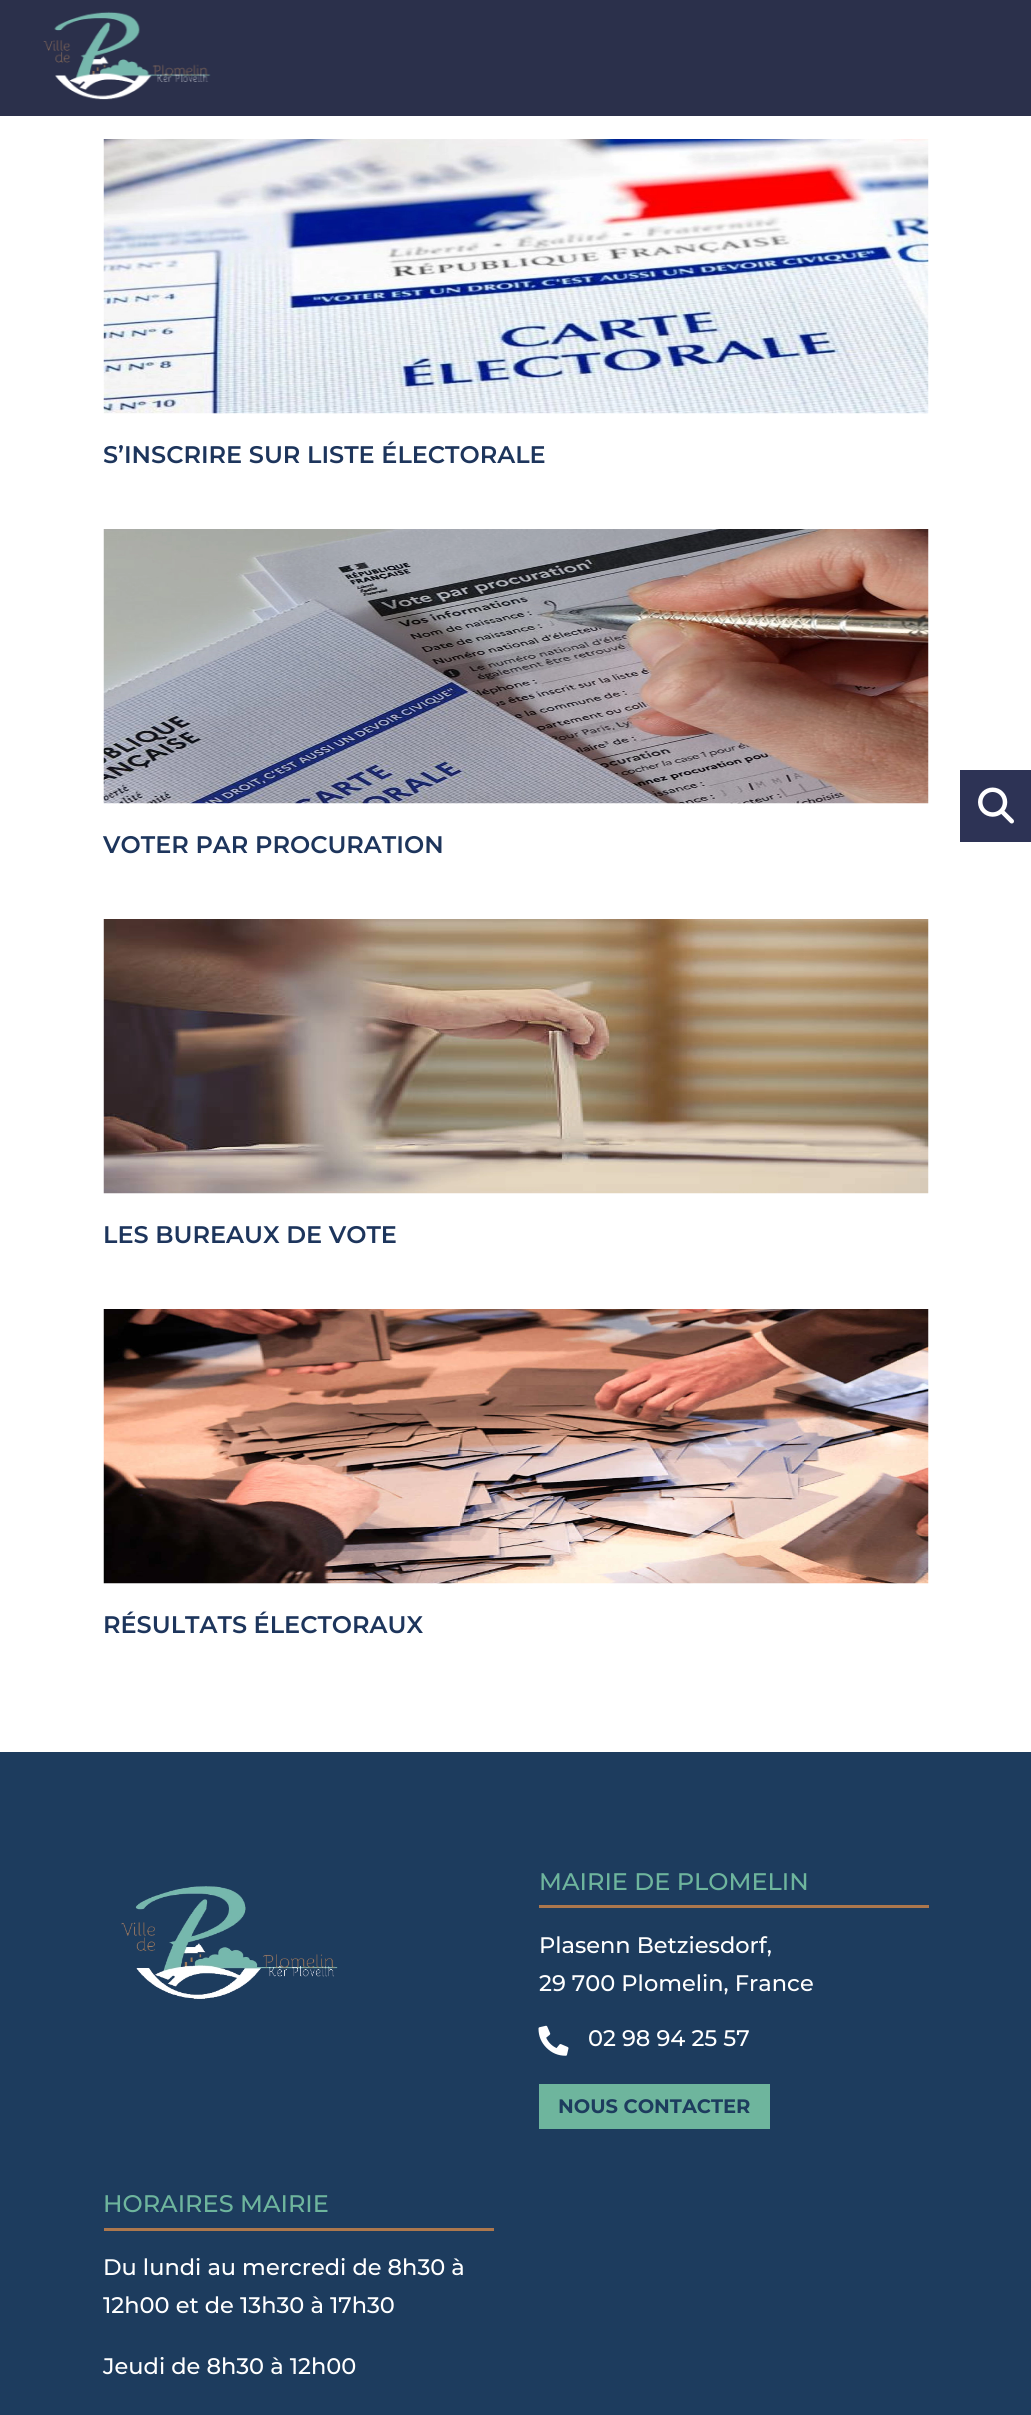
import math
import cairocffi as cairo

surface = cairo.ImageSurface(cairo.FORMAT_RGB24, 1031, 2415)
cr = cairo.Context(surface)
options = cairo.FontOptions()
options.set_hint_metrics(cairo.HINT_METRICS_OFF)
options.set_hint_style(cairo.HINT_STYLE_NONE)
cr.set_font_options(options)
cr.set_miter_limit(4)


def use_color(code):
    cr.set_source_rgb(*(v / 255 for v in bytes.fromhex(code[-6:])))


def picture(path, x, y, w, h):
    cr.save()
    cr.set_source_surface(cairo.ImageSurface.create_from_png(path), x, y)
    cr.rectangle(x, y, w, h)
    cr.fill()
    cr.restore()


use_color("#ffffff")
cr.paint()
use_color("#2b304b")
cr.rectangle(0, 0, 1031, 116)
cr.fill()
picture("img1.png", 43, 11, 168, 89)
picture("img2.png", 103, 139, 826, 275)
cr.select_font_face("Montserrat Thin")
cr.set_font_size(24)
use_color("#1d355c")
cr.move_to(103, 463)
cr.show_text("S’INSCRIRE SUR LISTE ÉLECTORALE")
picture("img3.png", 103, 529, 826, 275)
cr.move_to(103, 853)
cr.show_text("VOTER PAR PROCURATION")
picture("img4.png", 103, 919, 826, 275)
cr.move_to(103, 1243)
cr.show_text("LES BUREAUX DE VOTE")
picture("img5.png", 103, 1309, 826, 275)
cr.move_to(103, 1633)
cr.show_text("RÉSULTATS ÉLECTORAUX")
use_color("#1d3c5e")
cr.rectangle(0, 1752, 1031, 663)
cr.fill()
picture("img6.png", 121, 1886, 217, 113)
cr.select_font_face("Montserrat Medium")
use_color("#6eb59d")
cr.move_to(539, 1890)
cr.show_text("MAIRIE DE PLOMELIN")
use_color("#ac774d")
cr.rectangle(539, 1905, 390, 3)
cr.fill()
cr.set_font_size(22.5)
use_color("#ffffff")
cr.move_to(539, 1953)
cr.show_text("Plasenn Betziesdorf,")
cr.move_to(539, 1991)
cr.show_text("29 700 Plomelin, France")
picture("img7.png", 538, 2025, 31, 31)
cr.move_to(588, 2046)
cr.show_text("02 98 94 25 57")
use_color("#6eb59d")
cr.rectangle(539, 2084, 231, 45)
cr.fill()
cr.select_font_face("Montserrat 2 Thin")
cr.set_font_size(19.5)
use_color("#1d3c5e")
cr.move_to(558, 2113)
cr.show_text("NOUS CONTACTER")
cr.select_font_face("Montserrat Medium")
cr.set_font_size(24)
use_color("#6eb59d")
cr.move_to(103, 2212)
cr.show_text("HORAIRES MAIRIE")
use_color("#ac774d")
cr.rectangle(104, 2228, 390, 3)
cr.fill()
cr.set_font_size(22.5)
use_color("#ffffff")
cr.move_to(103, 2275)
cr.show_text("Du lundi au mercredi de 8h30 à")
cr.move_to(103, 2313)
cr.show_text("12h00 et de 13h30 à 17h30")
cr.move_to(103, 2374)
cr.show_text("Jeudi de 8h30 à 12h00")
use_color("#2d3355")
cr.rectangle(960, 770, 71, 72)
cr.fill()
picture("img8.png", 978, 787, 36, 37)
surface.write_to_png("result.png")
